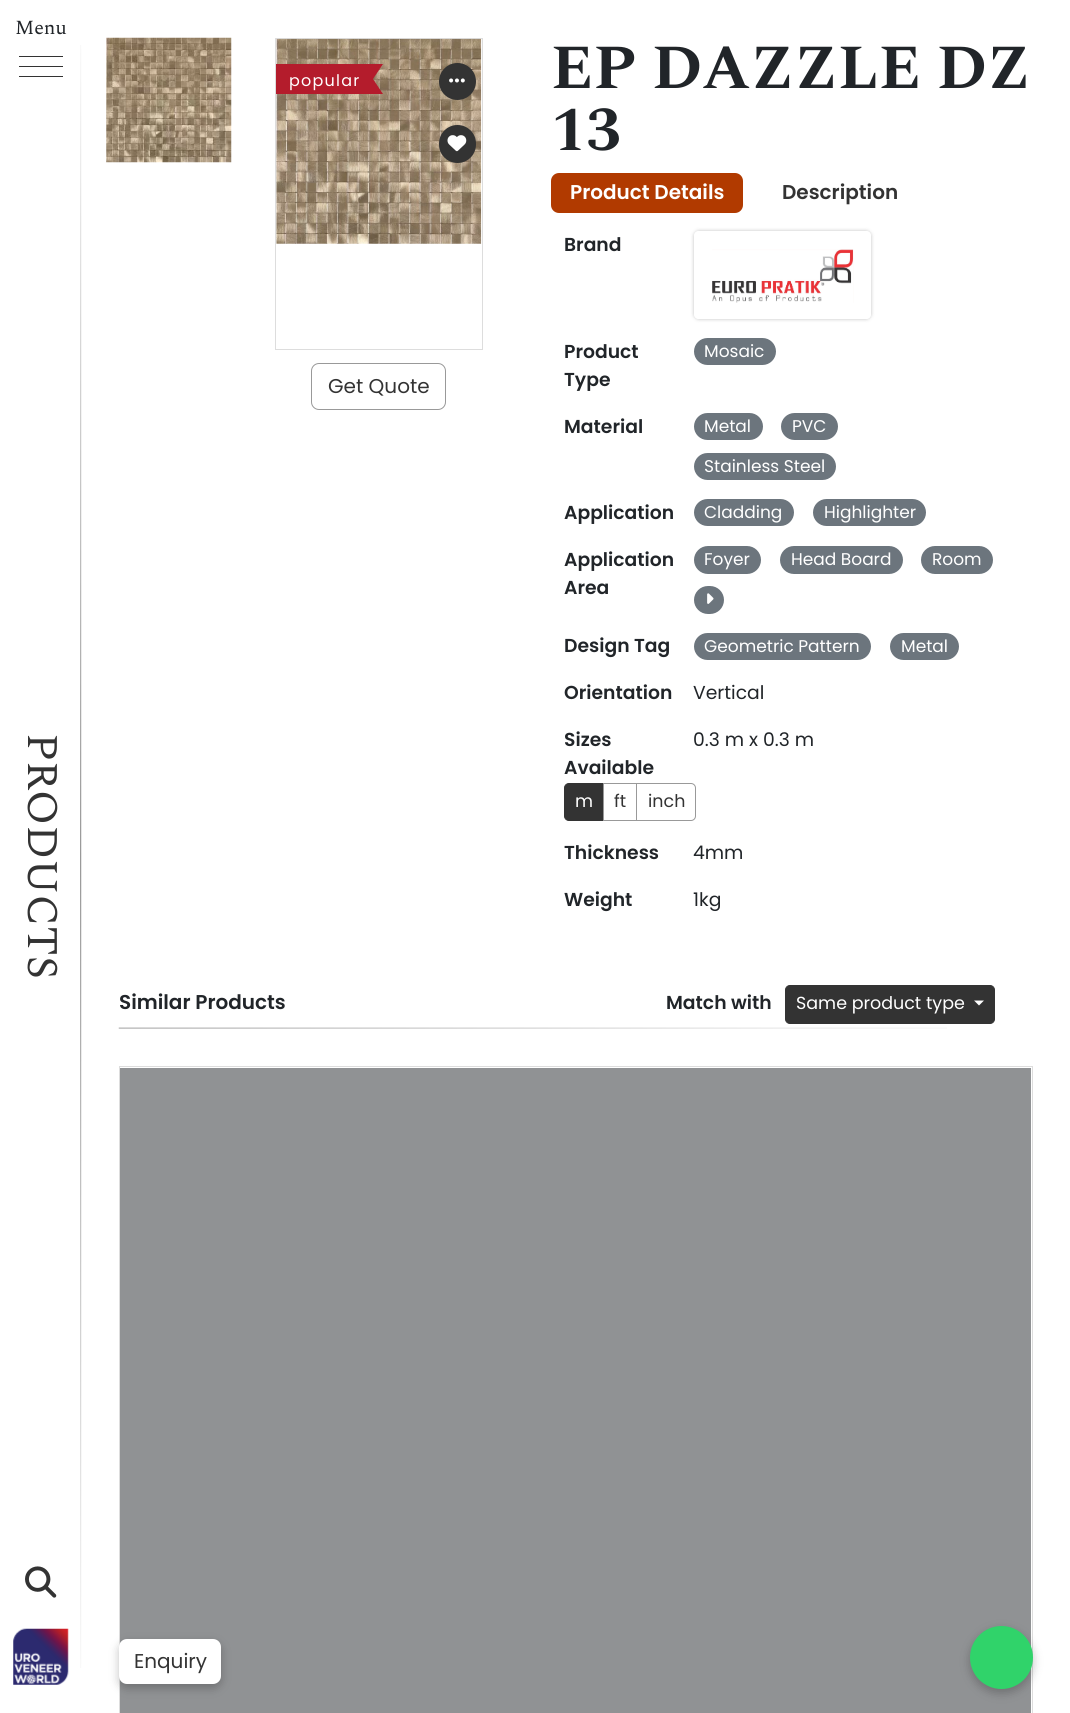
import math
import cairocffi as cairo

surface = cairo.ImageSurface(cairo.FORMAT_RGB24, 1070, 1713)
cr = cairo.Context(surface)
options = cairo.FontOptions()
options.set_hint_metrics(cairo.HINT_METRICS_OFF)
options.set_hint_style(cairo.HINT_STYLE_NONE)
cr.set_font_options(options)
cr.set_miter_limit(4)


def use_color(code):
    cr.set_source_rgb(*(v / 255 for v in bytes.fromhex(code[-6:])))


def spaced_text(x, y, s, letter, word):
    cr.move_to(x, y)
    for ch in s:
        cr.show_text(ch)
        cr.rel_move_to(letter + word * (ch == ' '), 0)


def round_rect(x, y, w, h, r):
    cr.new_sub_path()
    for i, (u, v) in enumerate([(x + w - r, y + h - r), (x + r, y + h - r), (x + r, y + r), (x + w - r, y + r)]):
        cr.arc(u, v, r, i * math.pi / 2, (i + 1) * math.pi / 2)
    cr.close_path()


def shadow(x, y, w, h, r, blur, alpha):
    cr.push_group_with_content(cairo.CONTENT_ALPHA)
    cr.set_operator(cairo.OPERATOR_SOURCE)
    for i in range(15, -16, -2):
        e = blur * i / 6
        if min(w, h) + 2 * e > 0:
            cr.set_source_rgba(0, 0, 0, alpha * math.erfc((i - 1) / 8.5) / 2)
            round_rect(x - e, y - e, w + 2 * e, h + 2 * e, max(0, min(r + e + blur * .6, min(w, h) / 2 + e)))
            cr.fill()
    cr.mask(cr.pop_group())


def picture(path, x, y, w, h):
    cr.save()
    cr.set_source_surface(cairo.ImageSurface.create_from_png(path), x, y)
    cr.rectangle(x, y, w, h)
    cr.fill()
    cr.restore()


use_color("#ffffff")
cr.paint()
cr.select_font_face("Spectral")
cr.set_font_size(20)
use_color("#212529")
cr.move_to(15, 34)
cr.show_text("Menu")
use_color("#333333")
cr.rectangle(19, 56, 44, 1)
cr.fill()
cr.rectangle(19, 66, 44, 1)
cr.fill()
cr.rectangle(19, 76, 44, 1)
cr.fill()
picture("img1.png", 106, 37, 126, 126)
cr.rectangle(275.5, 38.5, 207, 311)
use_color("#dddddd")
cr.set_line_width(1)
cr.stroke()
picture("img2.png", 276, 38, 206, 206)
use_color("#b41c2c")
cr.rectangle(276, 64, 87, 30)
cr.fill()
cr.select_font_face("Poppins")
cr.set_font_size(16)
use_color("#ffffff")
spaced_text(289, 86, "popular", 1.25, 0)
use_color("#b41c2c")
cr.new_path()
cr.move_to(383, 94)
cr.line_to(363, 94)
cr.line_to(373, 79)
cr.close_path()
cr.fill()
cr.rectangle(363, 64, 10, 30)
cr.fill()
cr.new_path()
cr.move_to(363, 64)
cr.line_to(383, 64)
cr.line_to(373, 79)
cr.close_path()
cr.fill()
use_color("#333333")
cr.arc(457.5, 81.5, 18.5, 0, 2 * math.pi)
cr.fill()
picture("img3.png", 449, 78, 16, 5)
round_rect(439, 125, 37, 38, 18.5)
cr.fill()
picture("img4.png", 447, 135, 20, 17)
round_rect(311.5, 363.5, 134, 46, 7.5)
use_color("#999999")
cr.stroke()
cr.set_font_size(20)
use_color("#333333")
cr.move_to(328, 393)
cr.show_text("Get Quote")
cr.select_font_face("Spectral", cairo.FONT_SLANT_NORMAL, cairo.FONT_WEIGHT_BOLD)
cr.set_font_size(62.5)
use_color("#212529")
cr.move_to(551, 88)
cr.show_text("EP DAZZLE DZ")
cr.move_to(551, 150)
cr.show_text("13")
use_color("#b13a00")
round_rect(551, 173, 192, 40, 8)
cr.fill()
cr.select_font_face("Poppins SemiBold")
cr.set_font_size(20)
use_color("#ffffff")
cr.move_to(570, 199)
cr.show_text("Product Details")
use_color("#333333")
cr.move_to(782, 199)
cr.show_text("Description")
cr.set_font_size(18.75)
use_color("#212529")
cr.move_to(564, 251)
cr.show_text("Brand")
cr.save()
cr.set_fill_rule(cairo.FILL_RULE_EVEN_ODD)
cr.new_path()
cr.move_to(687, 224)
cr.line_to(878, 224)
cr.line_to(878, 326)
cr.line_to(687, 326)
cr.close_path()
cr.move_to(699, 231)
cr.line_to(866, 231)
cr.curve_to(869, 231, 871, 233, 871, 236)
cr.line_to(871, 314)
cr.curve_to(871, 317, 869, 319, 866, 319)
cr.line_to(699, 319)
cr.curve_to(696, 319, 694, 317, 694, 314)
cr.line_to(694, 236)
cr.curve_to(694, 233, 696, 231, 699, 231)
cr.close_path()
cr.clip()
use_color("#000000")
shadow(694, 231, 177, 88, 5, 2, 0.24)
cr.restore()
picture("img5.png", 712, 249, 142, 54)
cr.move_to(564, 358)
cr.show_text("Product")
cr.move_to(564, 386)
cr.show_text("Type")
use_color("#6c757d")
round_rect(694, 338, 82, 27, 13.5)
cr.fill()
cr.select_font_face("Poppins")
cr.set_font_size(17)
use_color("#ffffff")
cr.move_to(704, 357)
cr.show_text("Mosaic")
cr.select_font_face("Poppins SemiBold")
cr.set_font_size(18.75)
use_color("#212529")
cr.move_to(564, 433)
cr.show_text("Material")
use_color("#6c757d")
round_rect(694, 413, 69, 27, 13.5)
cr.fill()
cr.select_font_face("Poppins")
cr.set_font_size(17)
use_color("#ffffff")
cr.move_to(704, 432)
cr.show_text("Metal")
use_color("#6c757d")
round_rect(781, 413, 57, 27, 13.5)
cr.fill()
use_color("#ffffff")
cr.move_to(792, 432)
cr.show_text("PVC")
use_color("#6c757d")
round_rect(694, 453, 142, 27, 13.5)
cr.fill()
use_color("#ffffff")
cr.move_to(704, 472)
cr.show_text("Stainless Steel")
cr.select_font_face("Poppins SemiBold")
cr.set_font_size(18.75)
use_color("#212529")
cr.move_to(564, 519)
cr.show_text("Application")
use_color("#6c757d")
round_rect(694, 499, 100, 27, 13.5)
cr.fill()
cr.select_font_face("Poppins")
cr.set_font_size(17)
use_color("#ffffff")
cr.move_to(704, 518)
cr.show_text("Cladding")
use_color("#6c757d")
round_rect(813, 499, 113, 27, 13.5)
cr.fill()
use_color("#ffffff")
cr.move_to(824, 518)
cr.show_text("Highlighter")
cr.select_font_face("Poppins SemiBold")
cr.set_font_size(18.75)
use_color("#212529")
cr.move_to(564, 566)
cr.show_text("Application")
cr.move_to(564, 594)
cr.show_text("Area")
use_color("#6c757d")
round_rect(694, 546, 67, 28, 14)
cr.fill()
cr.select_font_face("Poppins")
cr.set_font_size(17)
use_color("#ffffff")
cr.move_to(704, 565)
cr.show_text("Foyer")
use_color("#6c757d")
round_rect(780, 546, 123, 28, 14)
cr.fill()
use_color("#ffffff")
cr.move_to(791, 565)
cr.show_text("Head Board")
use_color("#6c757d")
round_rect(921, 546, 72, 28, 14)
cr.fill()
use_color("#ffffff")
cr.move_to(932, 565)
cr.show_text("Room")
use_color("#6c757d")
round_rect(694, 586, 30, 28, 14)
cr.fill()
picture("img6.png", 707, 593, 7, 11)
cr.select_font_face("Poppins SemiBold")
cr.set_font_size(18.75)
use_color("#212529")
cr.move_to(564, 652)
cr.show_text("Design Tag")
use_color("#6c757d")
round_rect(694, 633, 177, 27, 13.5)
cr.fill()
cr.select_font_face("Poppins")
cr.set_font_size(17)
use_color("#ffffff")
cr.move_to(704, 652)
cr.show_text("Geometric Pattern")
use_color("#6c757d")
round_rect(890, 633, 69, 27, 13.5)
cr.fill()
use_color("#ffffff")
cr.move_to(901, 652)
cr.show_text("Metal")
cr.select_font_face("Poppins SemiBold")
cr.set_font_size(18.75)
use_color("#212529")
cr.move_to(564, 699)
cr.show_text("Orientation")
cr.select_font_face("Poppins")
cr.move_to(693, 699)
cr.show_text("Vertical")
cr.select_font_face("Poppins SemiBold")
cr.move_to(564, 746)
cr.show_text("Sizes")
cr.move_to(564, 774)
cr.show_text("Available")
use_color("#333333")
cr.new_path()
cr.move_to(569, 783.5)
cr.line_to(603.5, 783.5)
cr.line_to(603.5, 820.5)
cr.line_to(569, 820.5)
cr.curve_to(566.5, 820.5, 564.5, 818.5, 564.5, 816)
cr.line_to(564.5, 788)
cr.curve_to(564.5, 785.5, 566.5, 783.5, 569, 783.5)
cr.close_path()
cr.fill_preserve()
cr.stroke()
cr.select_font_face("Poppins")
cr.set_font_size(17.5)
use_color("#ffffff")
cr.move_to(575, 807)
cr.show_text("m")
cr.rectangle(603.5, 783.5, 34, 37)
use_color("#999999")
cr.stroke()
use_color("#333333")
cr.move_to(614, 807)
cr.show_text("ft")
use_color("#ffffff")
cr.new_path()
cr.move_to(636.5, 783.5)
cr.line_to(691, 783.5)
cr.curve_to(693.5, 783.5, 695.5, 785.5, 695.5, 788)
cr.line_to(695.5, 816)
cr.curve_to(695.5, 818.5, 693.5, 820.5, 691, 820.5)
cr.line_to(636.5, 820.5)
cr.close_path()
cr.fill_preserve()
use_color("#999999")
cr.stroke()
use_color("#333333")
cr.move_to(648, 807)
cr.show_text("inch")
cr.set_font_size(18.75)
use_color("#212529")
cr.move_to(693, 746)
cr.show_text("0.3 m x 0.3 m")
cr.select_font_face("Poppins SemiBold")
cr.move_to(564, 859)
cr.show_text("Thickness")
cr.select_font_face("Poppins")
cr.move_to(693, 859)
cr.show_text("4mm")
cr.select_font_face("Poppins SemiBold")
cr.move_to(564, 906)
cr.show_text("Weight")
cr.select_font_face("Poppins")
cr.move_to(693, 906)
cr.show_text("1kg")
picture("img7.png", 118, 1027, 829, 2)
cr.select_font_face("Poppins SemiBold")
cr.set_font_size(20)
cr.move_to(119, 1009)
cr.show_text("Similar Products")
cr.set_font_size(18.75)
cr.move_to(666, 1009)
cr.show_text("Match with")
use_color("#333333")
round_rect(785.5, 985.5, 209, 38, 4.5)
cr.fill_preserve()
cr.stroke()
cr.select_font_face("Poppins")
cr.set_font_size(17.5)
use_color("#ffffff")
cr.move_to(796, 1009)
cr.show_text("Same product type")
cr.new_path()
cr.move_to(974, 1000.5)
cr.line_to(984, 1000.5)
cr.line_to(979, 1005.5)
cr.close_path()
cr.fill()
cr.rectangle(119.5, 1066.5, 913, 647)
use_color("#dddddd")
cr.stroke()
use_color("#909294")
cr.rectangle(120, 1068, 911, 645)
cr.fill()
picture("img8.png", 80, 45, 2, 1623)
cr.select_font_face("Spectral")
cr.set_font_size(43.75)
use_color("#333333")
cr.save()
cr.translate(28, 733)
cr.rotate(90 * math.pi / 180)
cr.move_to(0, 0)
cr.show_text("PRODUCTS")
cr.restore()
picture("img9.png", 25, 1566, 32, 32)
picture("img10.png", 13, 1628, 56, 57)
use_color("#000000")
shadow(119, 1643, 102, 45, 8, 5, 0.24)
use_color("#ffffff")
round_rect(119, 1639, 102, 45, 8)
cr.fill()
cr.select_font_face("Poppins")
cr.set_font_size(20)
use_color("#333333")
cr.move_to(134, 1668)
cr.show_text("Enquiry")
use_color("#000000")
shadow(970, 1630, 63, 63, 31.5, 5, 0.24)
use_color("#30d36a")
cr.arc(1001.5, 1657.5, 31.5, 0, 2 * math.pi)
cr.fill()
surface.write_to_png("result.png")
